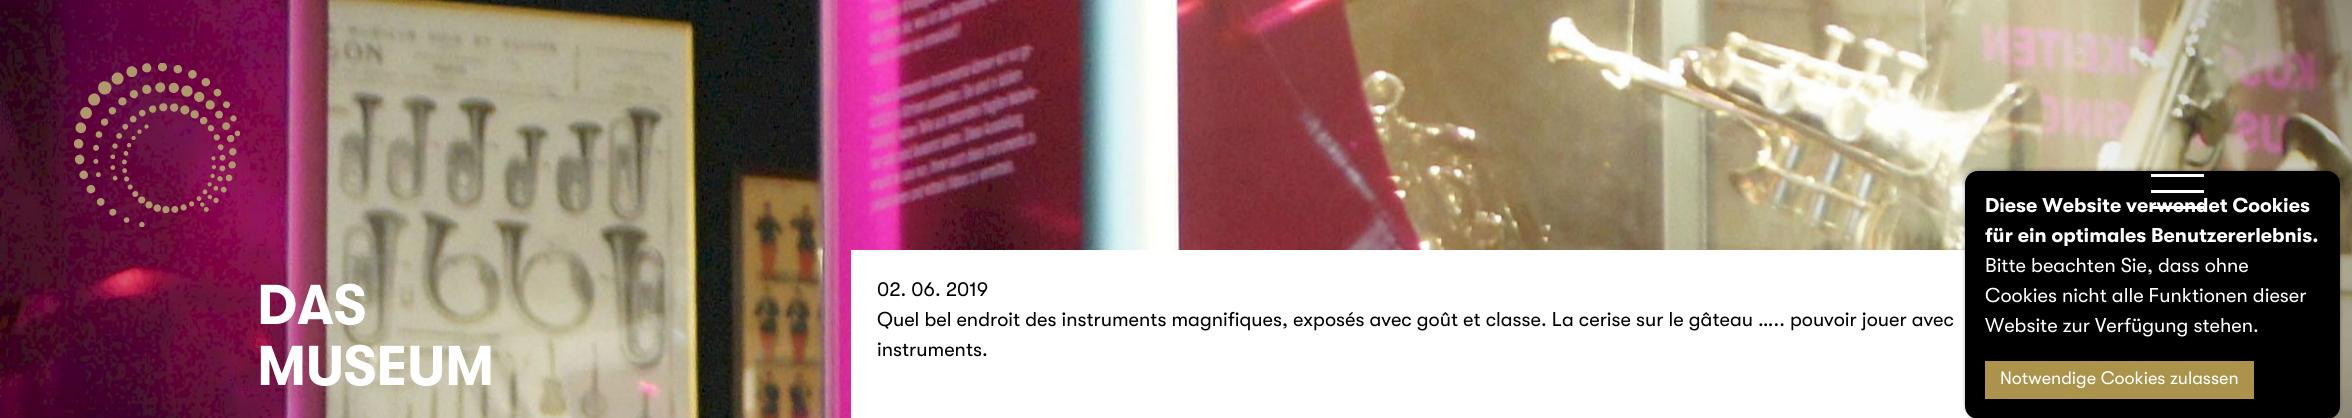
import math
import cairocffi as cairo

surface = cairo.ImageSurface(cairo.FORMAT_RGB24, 2352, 418)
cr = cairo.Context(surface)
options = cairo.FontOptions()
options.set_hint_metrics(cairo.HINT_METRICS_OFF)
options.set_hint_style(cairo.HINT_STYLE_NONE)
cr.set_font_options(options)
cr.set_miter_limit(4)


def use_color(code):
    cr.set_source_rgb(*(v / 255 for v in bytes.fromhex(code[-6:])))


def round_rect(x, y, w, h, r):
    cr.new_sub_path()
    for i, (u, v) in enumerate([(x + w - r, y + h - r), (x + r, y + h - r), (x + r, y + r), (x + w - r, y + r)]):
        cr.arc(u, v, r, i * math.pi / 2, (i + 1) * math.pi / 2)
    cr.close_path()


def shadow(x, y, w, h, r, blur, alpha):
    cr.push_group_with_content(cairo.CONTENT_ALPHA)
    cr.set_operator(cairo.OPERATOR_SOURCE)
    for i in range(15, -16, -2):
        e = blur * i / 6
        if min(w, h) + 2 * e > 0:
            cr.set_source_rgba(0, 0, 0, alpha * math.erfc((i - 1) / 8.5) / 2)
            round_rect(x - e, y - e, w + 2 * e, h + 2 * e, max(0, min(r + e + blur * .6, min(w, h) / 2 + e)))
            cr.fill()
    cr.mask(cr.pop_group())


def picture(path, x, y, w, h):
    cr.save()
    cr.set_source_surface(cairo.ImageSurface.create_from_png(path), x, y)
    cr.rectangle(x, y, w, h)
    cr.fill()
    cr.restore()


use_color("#ffffff")
cr.paint()
picture("img1.png", 0, 0, 2352, 418)
picture("img2.png", 74, 63, 167, 165)
use_color("#ffffff")
cr.rectangle(851, 250, 1122, 168)
cr.fill()
use_color("#000000")
shadow(1965, 170, 375, 248, 13, 2, 0.3)
use_color("#000000")
round_rect(1965, 171, 375, 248, 13)
cr.fill()
use_color("#ffffff")
cr.rectangle(2151, 174, 53, 3)
cr.fill()
cr.rectangle(2151, 190, 53, 3)
cr.fill()
cr.rectangle(2151, 206, 53, 3)
cr.fill()
cr.select_font_face("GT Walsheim", cairo.FONT_SLANT_NORMAL, cairo.FONT_WEIGHT_BOLD)
cr.set_font_size(56)
cr.move_to(257, 324)
cr.show_text("DAS")
cr.move_to(257, 385)
cr.show_text("MUSEUM")
cr.select_font_face("GT Walsheim")
cr.set_font_size(20)
use_color("#000000")
cr.move_to(877, 296)
cr.show_text("02. 06. 2019")
cr.move_to(877, 326)
cr.show_text("Quel bel endroit des instruments magnifiques, exposés avec goût et classe. La cerise sur le gâteau ….. pouvoir jouer avec")
cr.move_to(877, 356)
cr.show_text("instruments.")
cr.select_font_face("GT Walsheim", cairo.FONT_SLANT_NORMAL, cairo.FONT_WEIGHT_BOLD)
use_color("#ffffff")
cr.move_to(1985, 212)
cr.show_text("Diese Website verwendet Cookies")
cr.move_to(1985, 242)
cr.show_text("für ein optimales Benutzererlebnis.")
cr.select_font_face("GT Walsheim")
cr.move_to(1985, 272)
cr.show_text("Bitte beachten Sie, dass ohne")
cr.move_to(1985, 302)
cr.show_text("Cookies nicht alle Funktionen dieser")
cr.move_to(1985, 332)
cr.show_text("Website zur Verfügung stehen.")
use_color("#ab934b")
cr.rectangle(1985, 361, 269, 38)
cr.fill()
cr.set_font_size(18)
use_color("#ffffff")
cr.move_to(2000, 384)
cr.show_text("Notwendige Cookies zulassen")
surface.write_to_png("result.png")
